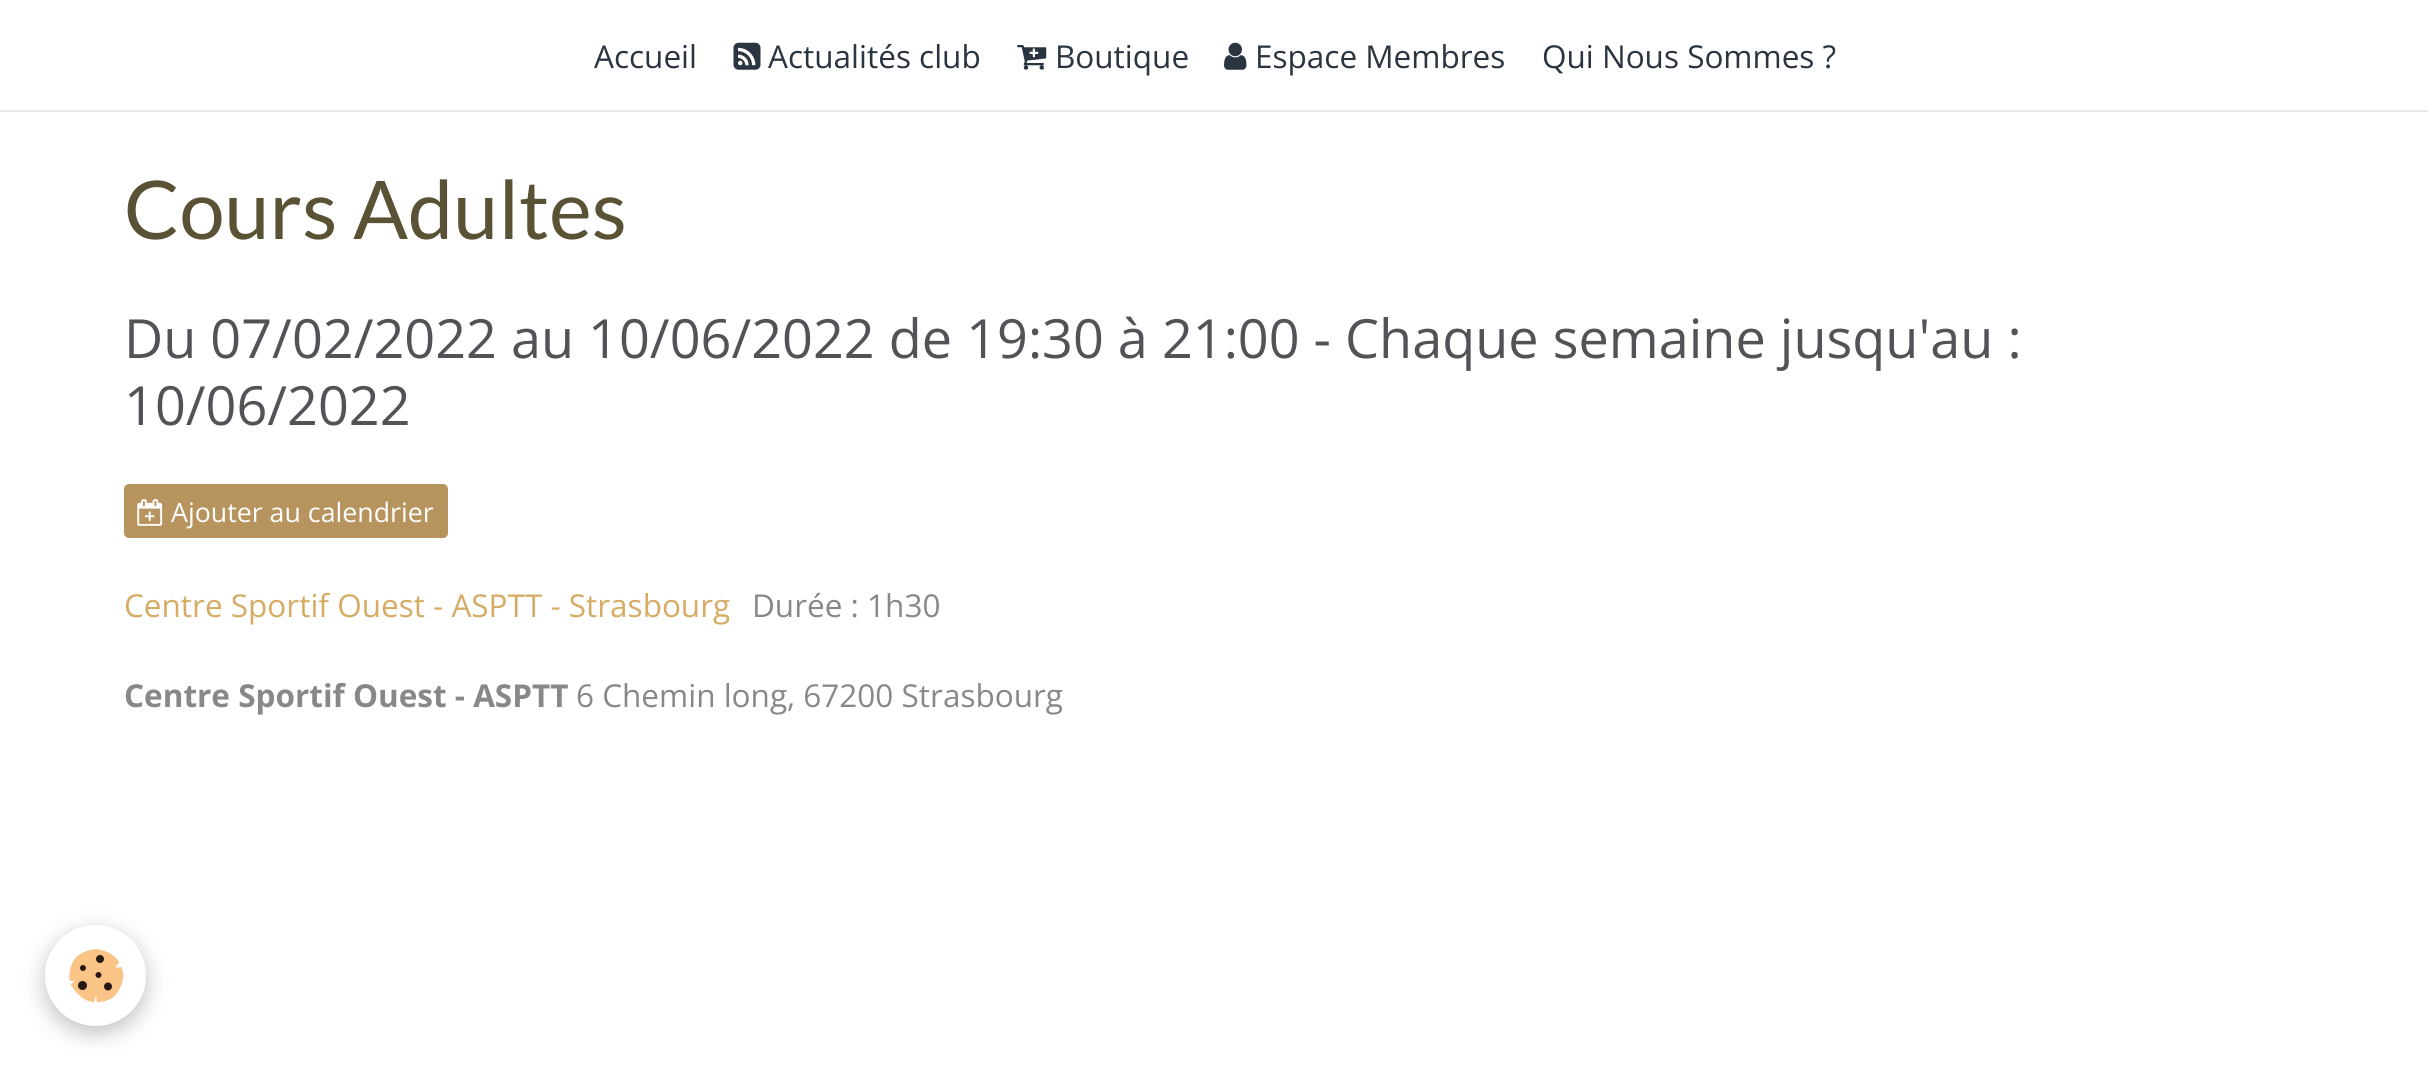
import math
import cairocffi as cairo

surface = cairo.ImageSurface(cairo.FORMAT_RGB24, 2428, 1068)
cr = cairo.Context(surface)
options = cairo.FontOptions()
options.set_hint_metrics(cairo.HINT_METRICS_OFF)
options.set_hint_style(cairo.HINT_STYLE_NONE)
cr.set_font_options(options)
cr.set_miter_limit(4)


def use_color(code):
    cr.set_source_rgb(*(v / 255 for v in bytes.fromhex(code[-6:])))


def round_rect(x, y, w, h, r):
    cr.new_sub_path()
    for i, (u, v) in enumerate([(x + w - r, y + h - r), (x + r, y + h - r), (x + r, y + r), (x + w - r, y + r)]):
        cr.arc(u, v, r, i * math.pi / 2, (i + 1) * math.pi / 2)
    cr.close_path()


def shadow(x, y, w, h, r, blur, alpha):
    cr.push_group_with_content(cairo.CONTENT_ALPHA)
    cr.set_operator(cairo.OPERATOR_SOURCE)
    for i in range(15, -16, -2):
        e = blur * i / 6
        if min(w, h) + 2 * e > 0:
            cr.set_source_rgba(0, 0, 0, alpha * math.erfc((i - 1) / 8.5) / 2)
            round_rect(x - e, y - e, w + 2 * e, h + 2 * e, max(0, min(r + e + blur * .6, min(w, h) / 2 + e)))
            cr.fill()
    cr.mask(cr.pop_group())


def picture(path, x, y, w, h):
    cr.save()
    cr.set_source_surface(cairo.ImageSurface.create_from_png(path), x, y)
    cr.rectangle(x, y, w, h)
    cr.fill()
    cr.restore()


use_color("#ffffff")
cr.paint()
use_color("#e7e7e7")
cr.rectangle(0, 110, 2428, 2)
cr.fill()
cr.select_font_face("Open Sans")
cr.set_font_size(31.5)
use_color("#2b3541")
cr.move_to(594, 68)
cr.show_text("Accueil")
picture("img1.png", 733, 42, 28, 28)
cr.move_to(768, 68)
cr.show_text("Actualités club")
picture("img2.png", 1017, 45, 30, 25)
cr.move_to(1055, 68)
cr.show_text("Boutique")
picture("img3.png", 1224, 42, 23, 28)
cr.move_to(1255, 68)
cr.show_text("Espace Membres")
cr.move_to(1542, 68)
cr.show_text("Qui Nous Sommes ?")
cr.select_font_face("Lato")
cr.set_font_size(81)
use_color("#595235")
cr.move_to(124, 239)
cr.show_text("Cours Adultes")
cr.select_font_face("Open Sans")
cr.set_font_size(54)
use_color("#545257")
cr.move_to(124, 358)
cr.show_text("Du 07/02/2022 au 10/06/2022 de 19:30 à 21:00 - Chaque semaine jusqu'au :")
cr.move_to(124, 425)
cr.show_text("10/06/2022")
use_color("#b7945e")
round_rect(124, 484, 324, 54, 5)
cr.fill()
picture("img4.png", 137, 499, 26, 27)
cr.set_font_size(26.75)
use_color("#ffffff")
cr.move_to(171, 522)
cr.show_text("Ajouter au calendrier")
cr.set_font_size(31.5)
use_color("#d6ab64")
cr.move_to(124, 617)
cr.show_text("Centre Sportif Ouest - ASPTT - Strasbourg")
use_color("#888888")
cr.move_to(752, 617)
cr.show_text("Durée : 1h30")
cr.select_font_face("Open Sans", cairo.FONT_SLANT_NORMAL, cairo.FONT_WEIGHT_BOLD)
cr.move_to(124, 707)
cr.show_text("Centre Sportif Ouest - ASPTT")
cr.select_font_face("Open Sans")
cr.move_to(576, 707)
cr.show_text("6 Chemin long, 67200 Strasbourg")
use_color("#000000")
shadow(45, 932, 101, 101, 50.5, 11, 0.24)
use_color("#ffffff")
cr.arc(95.5, 975.5, 50.5, 0, 2 * math.pi)
cr.fill()
picture("img5.png", 69, 949, 55, 54)
surface.write_to_png("result.png")
